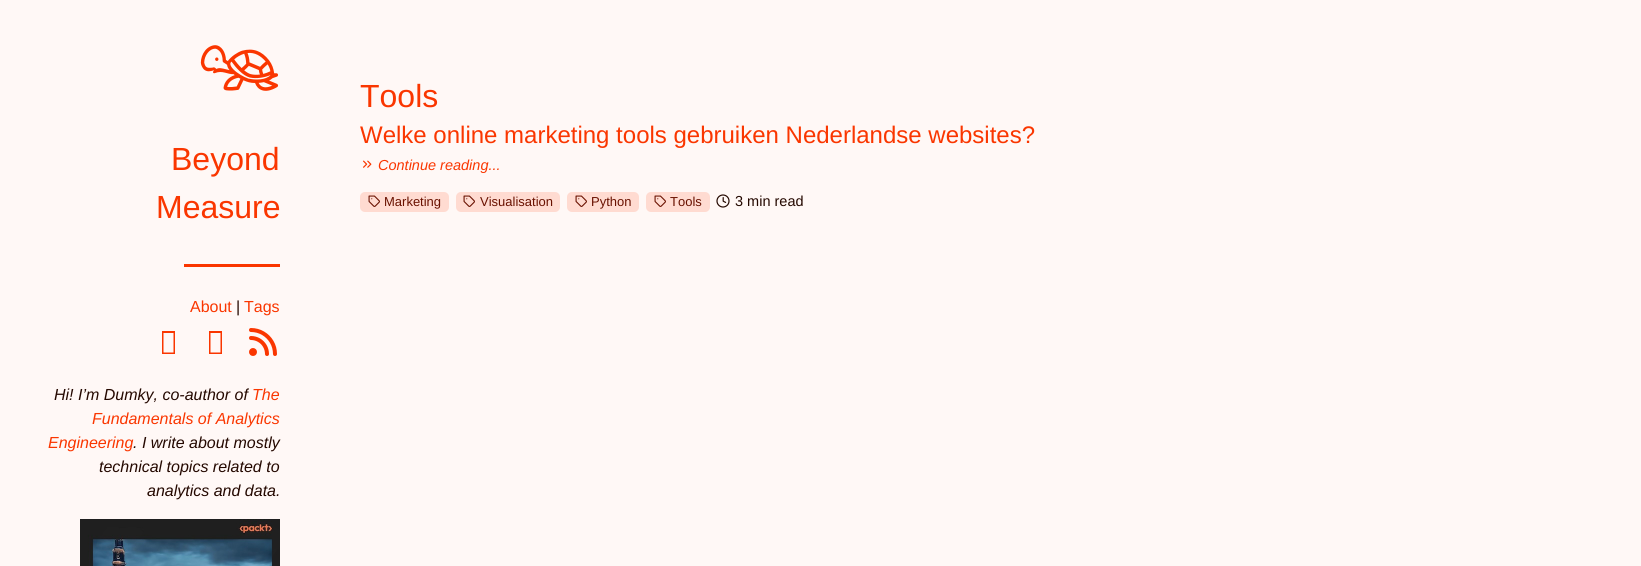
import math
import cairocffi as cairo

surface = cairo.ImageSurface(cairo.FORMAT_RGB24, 1641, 566)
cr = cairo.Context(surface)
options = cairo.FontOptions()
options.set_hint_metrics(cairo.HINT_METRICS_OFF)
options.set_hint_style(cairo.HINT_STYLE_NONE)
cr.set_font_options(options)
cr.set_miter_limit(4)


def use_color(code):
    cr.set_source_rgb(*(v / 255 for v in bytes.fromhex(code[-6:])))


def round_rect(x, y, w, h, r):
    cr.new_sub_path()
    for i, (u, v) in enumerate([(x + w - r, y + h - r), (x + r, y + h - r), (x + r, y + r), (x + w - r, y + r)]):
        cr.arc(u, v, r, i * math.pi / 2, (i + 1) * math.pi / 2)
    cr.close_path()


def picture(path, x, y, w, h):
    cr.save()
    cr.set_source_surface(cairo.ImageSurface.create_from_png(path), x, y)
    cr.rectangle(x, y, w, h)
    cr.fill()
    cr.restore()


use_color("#fff8f6")
cr.paint()
picture("img1.png", 200, 45, 79, 46)
cr.select_font_face("Liberation Sans")
cr.set_font_size(32)
use_color("#fa3600")
cr.move_to(171, 170)
cr.show_text("Beyond")
cr.move_to(156, 218)
cr.show_text("Measure")
cr.rectangle(184, 264, 96, 3)
cr.fill()
cr.set_font_size(16)
cr.move_to(190, 312)
cr.show_text("About")
use_color("#240800")
cr.move_to(236, 312)
cr.show_text("|")
use_color("#fa3600")
cr.move_to(244, 312)
cr.show_text("Tags")
cr.new_path()
cr.move_to(162, 354)
cr.line_to(162, 331)
cr.line_to(175, 331)
cr.line_to(175, 354)
cr.close_path()
cr.move_to(163.5, 352.5)
cr.line_to(173.5, 352.5)
cr.line_to(173.5, 333)
cr.line_to(163.5, 333)
cr.close_path()
cr.move_to(209, 354)
cr.line_to(209, 331)
cr.line_to(222, 331)
cr.line_to(222, 354)
cr.close_path()
cr.move_to(210.5, 352.5)
cr.line_to(220.5, 352.5)
cr.line_to(220.5, 333)
cr.line_to(210.5, 333)
cr.close_path()
cr.fill()
picture("img2.png", 249, 328, 28, 28)
cr.select_font_face("Liberation Sans", cairo.FONT_SLANT_ITALIC)
use_color("#240800")
cr.move_to(54, 400)
cr.show_text("Hi! I’m Dumky, co-author of")
use_color("#fa3600")
cr.move_to(252, 400)
cr.show_text("The")
cr.move_to(92, 424)
cr.show_text("Fundamentals of Analytics")
cr.move_to(48, 448)
cr.show_text("Engineering")
use_color("#240800")
cr.move_to(133, 448)
cr.show_text(". I write about mostly")
cr.move_to(99, 472)
cr.show_text("technical topics related to")
cr.move_to(147, 496)
cr.show_text("analytics and data.")
picture("img3.png", 80, 519, 200, 47)
cr.select_font_face("Liberation Sans")
cr.set_font_size(32)
use_color("#fa3600")
cr.move_to(360, 107)
cr.show_text("Tools")
cr.set_font_size(24)
cr.move_to(360, 143)
cr.show_text("Welke online marketing tools gebruiken Nederlandse websites?")
picture("img4.png", 363, 160, 9, 8)
cr.select_font_face("Liberation Sans", cairo.FONT_SLANT_ITALIC)
cr.set_font_size(14.5)
cr.move_to(378, 170)
cr.show_text("Continue reading...")
use_color("#ffdbd1")
round_rect(360, 192, 89, 20, 5)
cr.fill()
picture("img5.png", 368, 195, 12, 12)
cr.select_font_face("Liberation Sans")
cr.set_font_size(13)
use_color("#691100")
cr.move_to(384, 206)
cr.show_text("Marketing")
use_color("#ffdbd1")
round_rect(456, 192, 104, 20, 5)
cr.fill()
picture("img5.png", 463, 195, 12, 12)
use_color("#691100")
cr.move_to(480, 206)
cr.show_text("Visualisation")
use_color("#ffdbd1")
round_rect(567, 192, 72, 20, 5)
cr.fill()
picture("img5.png", 575, 195, 12, 12)
use_color("#691100")
cr.move_to(591, 206)
cr.show_text("Python")
use_color("#ffdbd1")
round_rect(646, 192, 64, 20, 5)
cr.fill()
picture("img5.png", 654, 195, 12, 12)
use_color("#691100")
cr.move_to(670, 206)
cr.show_text("Tools")
picture("img6.png", 716, 194, 14, 14)
cr.set_font_size(14.5)
use_color("#240800")
cr.move_to(735, 206)
cr.show_text("3 min read")
surface.write_to_png("result.png")
